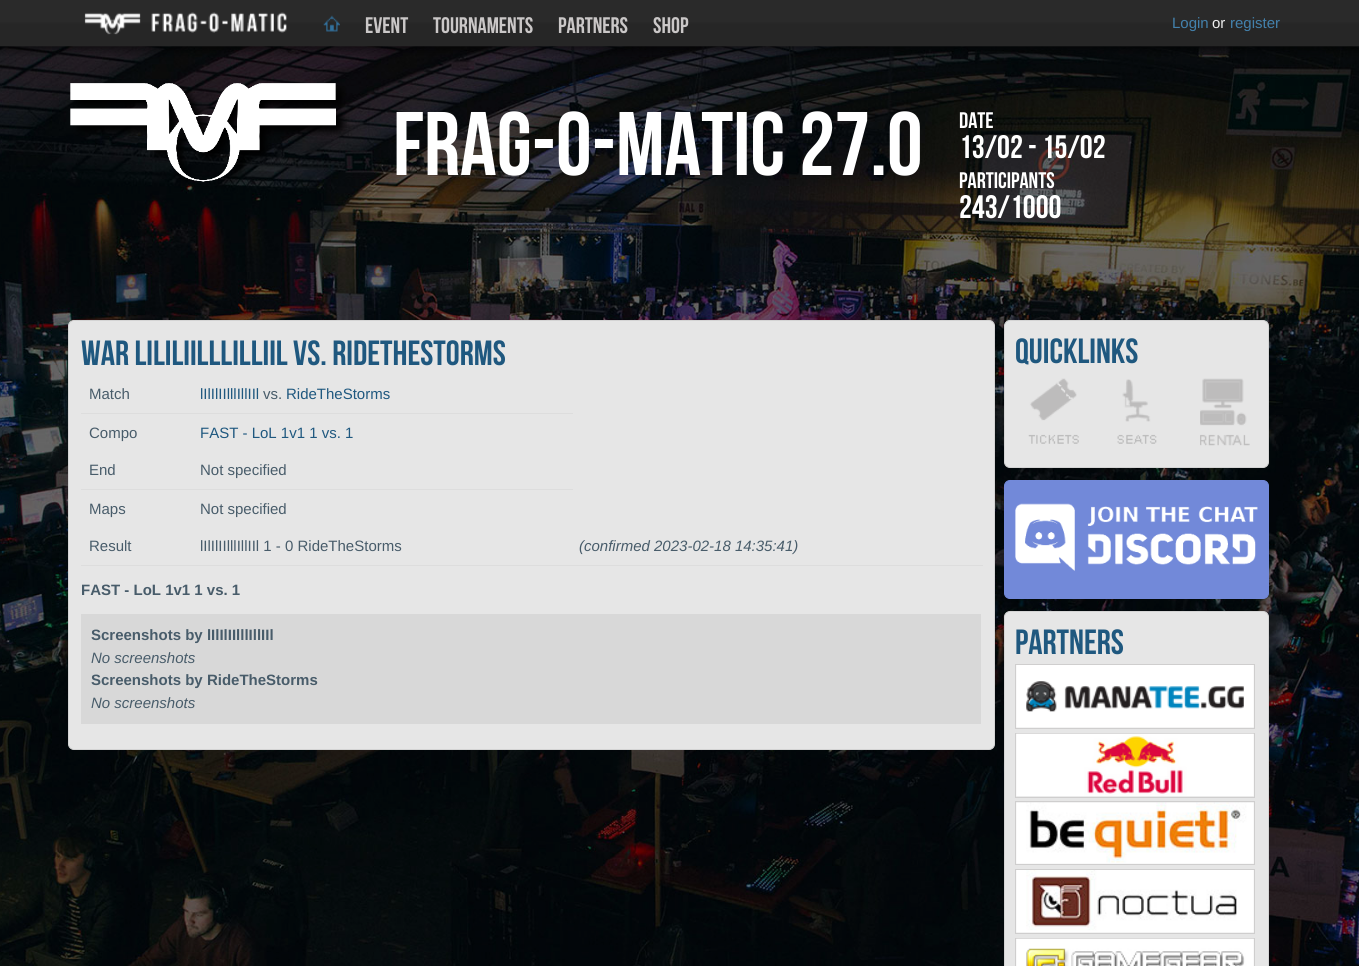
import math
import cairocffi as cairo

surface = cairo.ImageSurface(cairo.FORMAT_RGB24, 1359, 966)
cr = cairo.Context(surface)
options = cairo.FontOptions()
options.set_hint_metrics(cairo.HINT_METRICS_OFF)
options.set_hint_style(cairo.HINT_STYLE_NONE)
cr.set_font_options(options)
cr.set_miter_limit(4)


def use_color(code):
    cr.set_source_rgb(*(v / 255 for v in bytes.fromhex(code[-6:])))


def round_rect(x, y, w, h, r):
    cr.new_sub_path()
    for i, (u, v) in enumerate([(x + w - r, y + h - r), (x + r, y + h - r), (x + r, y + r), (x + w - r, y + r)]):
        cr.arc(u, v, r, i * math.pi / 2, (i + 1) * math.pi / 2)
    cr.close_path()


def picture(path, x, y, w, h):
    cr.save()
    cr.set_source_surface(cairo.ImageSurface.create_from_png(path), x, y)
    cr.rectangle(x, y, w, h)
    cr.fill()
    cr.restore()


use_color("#ffffff")
cr.paint()
picture("img1.png", 0, 46, 1359, 920)
picture("img2.png", 0, 0, 1359, 56)
picture("img3.png", 84, 12, 203, 23)
picture("img4.png", 323, 15, 17, 17)
cr.select_font_face("Bebas Neue")
cr.set_font_size(22.5)
use_color("#cac7c7")
cr.move_to(365, 33)
cr.show_text("EVENT")
cr.move_to(433, 33)
cr.show_text("TOURNAMENTS")
cr.move_to(558, 33)
cr.show_text("PARTNERS")
cr.move_to(653, 33)
cr.show_text("SHOP")
cr.select_font_face("Liberation Sans")
cr.set_font_size(15)
use_color("#4381ac")
cr.move_to(1172, 28)
cr.show_text("Login")
use_color("#eeeeee")
cr.move_to(1212, 28)
cr.show_text("or")
use_color("#4381ac")
cr.move_to(1230, 28)
cr.show_text("register")
picture("img5.png", 70, 83, 277, 106)
cr.select_font_face("Bebas Neue")
cr.set_font_size(90)
use_color("#ffffff")
cr.move_to(393, 175)
cr.show_text("Frag-o-Matic 27.0")
cr.set_font_size(22.5)
cr.move_to(959, 128)
cr.show_text("Date")
cr.set_font_size(32.5)
cr.move_to(959, 158)
cr.show_text("13/02 - 15/02")
cr.set_font_size(22.5)
cr.move_to(959, 188)
cr.show_text("Participants")
cr.set_font_size(32.5)
cr.move_to(959, 218)
cr.show_text("243/1000")
use_color("#e6e6e6")
round_rect(68.5, 320.5, 926, 429, 5.5)
cr.fill_preserve()
use_color("#d4d4d4")
cr.set_line_width(1)
cr.stroke()
cr.set_font_size(35)
use_color("#1f587f")
cr.move_to(81, 365)
cr.show_text("War lIlIlIIlllIllIIl vs. RideTheStorms")
cr.select_font_face("Liberation Sans")
cr.set_font_size(15)
use_color("#485c6a")
cr.move_to(89, 399)
cr.show_text("Match")
use_color("#dddddd")
cr.rectangle(81, 413, 492, 1)
cr.fill()
use_color("#1f587f")
cr.move_to(200, 399)
cr.show_text("lIlIlIIlllIllIIl")
use_color("#485c6a")
cr.move_to(263, 399)
cr.show_text("vs.")
use_color("#1f587f")
cr.move_to(286, 399)
cr.show_text("RideTheStorms")
use_color("#485c6a")
cr.move_to(89, 438)
cr.show_text("Compo")
use_color("#1f587f")
cr.move_to(200, 438)
cr.show_text("FAST - LoL 1v1 1 vs. 1")
use_color("#485c6a")
cr.move_to(89, 475)
cr.show_text("End")
use_color("#dddddd")
cr.rectangle(81, 489, 492, 1)
cr.fill()
use_color("#485c6a")
cr.move_to(200, 475)
cr.show_text("Not specified")
cr.move_to(89, 514)
cr.show_text("Maps")
cr.move_to(200, 514)
cr.show_text("Not specified")
cr.move_to(89, 551)
cr.show_text("Result")
cr.move_to(200, 551)
cr.show_text("lIlIlIIlllIllIIl 1 - 0 RideTheStorms")
use_color("#dddddd")
cr.rectangle(81, 565, 902, 1)
cr.fill()
cr.select_font_face("Liberation Sans", cairo.FONT_SLANT_ITALIC)
use_color("#485c6a")
cr.move_to(579, 551)
cr.show_text("(confirmed 2023-02-18 14:35:41)")
cr.select_font_face("Liberation Sans", cairo.FONT_SLANT_NORMAL, cairo.FONT_WEIGHT_BOLD)
cr.move_to(81, 595)
cr.show_text("FAST - LoL 1v1 1 vs. 1")
use_color("#d8d8d8")
cr.rectangle(81, 614, 900, 110)
cr.fill()
use_color("#485c6a")
cr.move_to(91, 640)
cr.show_text("Screenshots by lIlIlIIlllIllIIl")
cr.select_font_face("Liberation Sans", cairo.FONT_SLANT_ITALIC)
cr.move_to(91, 663)
cr.show_text("No screenshots")
cr.select_font_face("Liberation Sans", cairo.FONT_SLANT_NORMAL, cairo.FONT_WEIGHT_BOLD)
cr.move_to(91, 685)
cr.show_text("Screenshots by RideTheStorms")
cr.select_font_face("Liberation Sans", cairo.FONT_SLANT_ITALIC)
cr.move_to(91, 708)
cr.show_text("No screenshots")
use_color("#e6e6e6")
round_rect(1004.5, 320.5, 264, 147, 5.5)
cr.fill_preserve()
use_color("#d4d4d4")
cr.stroke()
cr.select_font_face("Bebas Neue")
cr.set_font_size(35)
use_color("#1f587f")
cr.move_to(1015, 363)
cr.show_text("Quicklinks")
picture("img6.png", 1028, 378, 51, 66)
picture("img7.png", 1117, 379, 40, 65)
picture("img8.png", 1200, 378, 50, 68)
use_color("#7289d9")
round_rect(1004.5, 480.5, 264, 118, 5.5)
cr.fill_preserve()
cr.stroke()
picture("img9.png", 1015, 503, 243, 68)
use_color("#e6e6e6")
round_rect(1004.5, 611.5, 264, 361, 5.5)
cr.fill_preserve()
use_color("#d4d4d4")
cr.stroke()
use_color("#1f587f")
cr.move_to(1015, 654)
cr.show_text("Partners")
cr.rectangle(1015.5, 664.5, 239, 64)
use_color("#cfcece")
cr.stroke()
picture("img10.png", 1016, 665, 238, 63)
cr.rectangle(1015.5, 733.5, 239, 64)
cr.stroke()
picture("img11.png", 1016, 733, 238, 64)
cr.rectangle(1015.5, 801.5, 239, 63)
cr.stroke()
picture("img12.png", 1016, 802, 238, 62)
cr.rectangle(1015.5, 869.5, 239, 64)
cr.stroke()
picture("img13.png", 1016, 870, 238, 63)
cr.rectangle(1015.5, 938.5, 239, 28)
cr.stroke()
picture("img14.png", 1016, 938, 238, 28)
surface.write_to_png("result.png")
